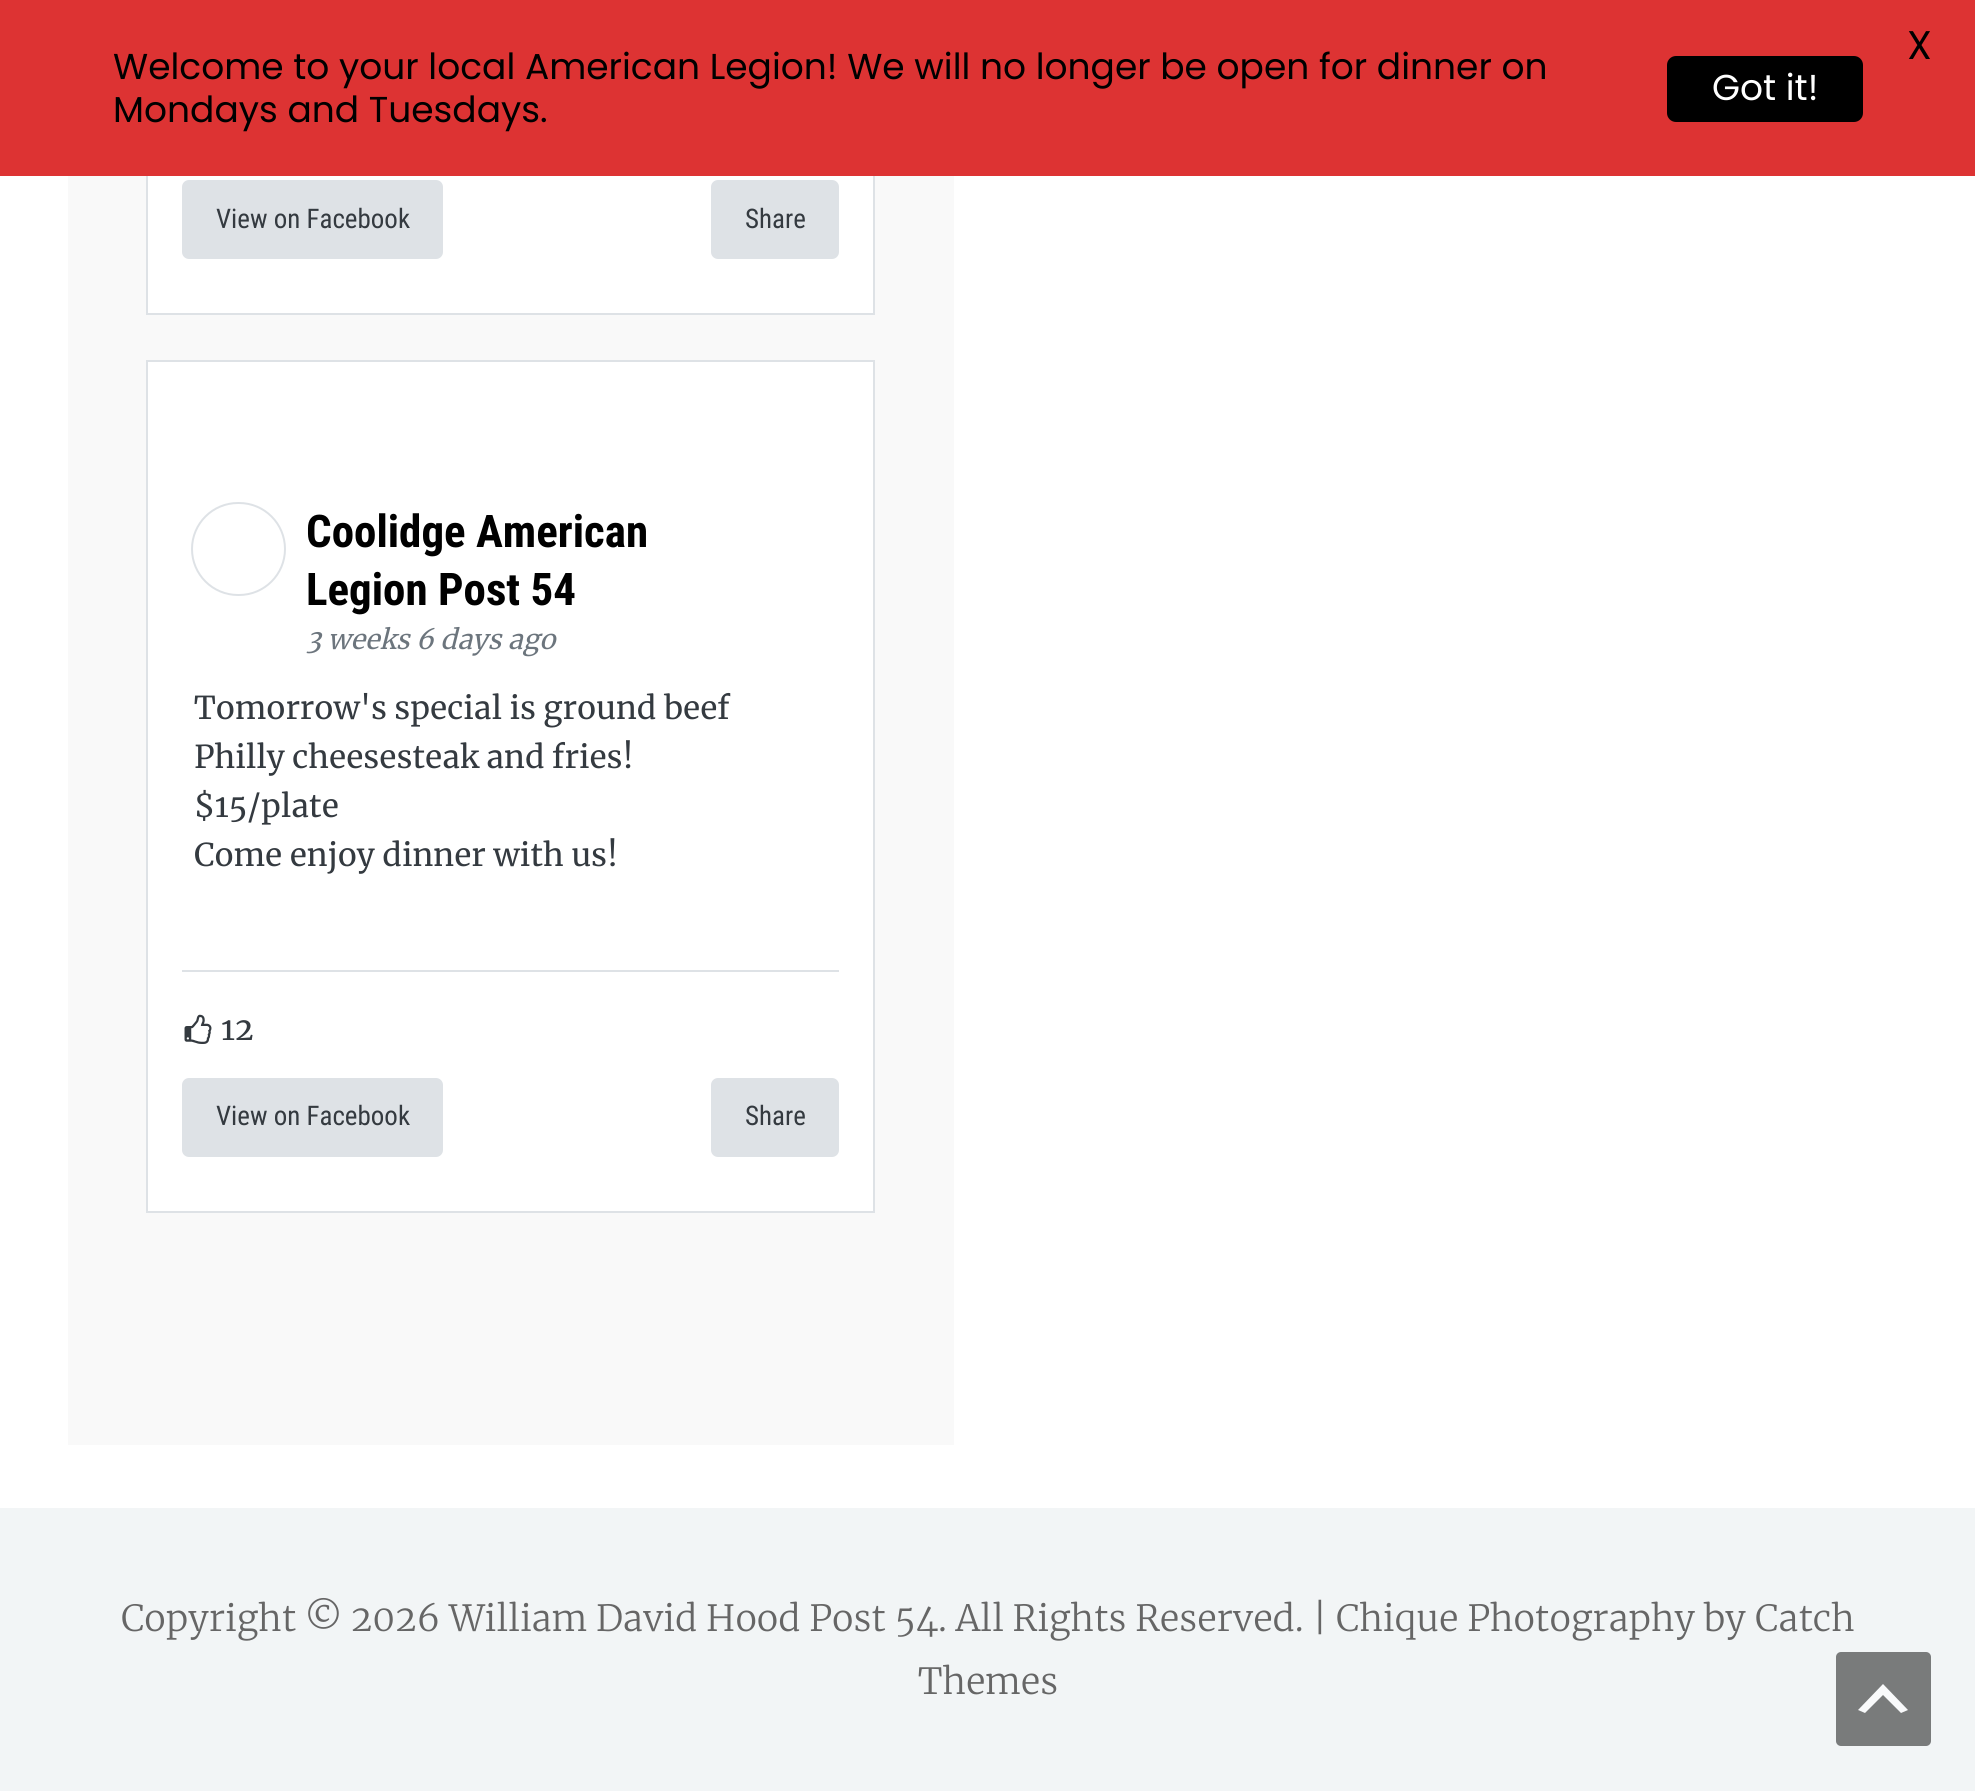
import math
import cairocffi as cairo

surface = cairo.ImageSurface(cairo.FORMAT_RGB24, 1975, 1791)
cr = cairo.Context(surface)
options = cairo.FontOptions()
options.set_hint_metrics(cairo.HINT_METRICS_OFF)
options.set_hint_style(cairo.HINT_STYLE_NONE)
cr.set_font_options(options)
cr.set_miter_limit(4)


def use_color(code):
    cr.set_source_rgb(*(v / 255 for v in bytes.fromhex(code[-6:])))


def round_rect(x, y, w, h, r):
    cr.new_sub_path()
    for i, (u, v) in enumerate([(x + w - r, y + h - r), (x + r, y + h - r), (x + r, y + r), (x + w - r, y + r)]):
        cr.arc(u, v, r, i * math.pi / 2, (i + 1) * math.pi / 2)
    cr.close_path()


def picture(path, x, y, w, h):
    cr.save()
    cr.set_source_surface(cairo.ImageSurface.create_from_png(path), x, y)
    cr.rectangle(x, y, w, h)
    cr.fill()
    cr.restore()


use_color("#ffffff")
cr.paint()
use_color("#f9f9f9")
cr.rectangle(68, 176, 886, 1269)
cr.fill()
use_color("#ffffff")
cr.rectangle(148, 176, 725, 137)
cr.fill()
cr.rectangle(147, -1, 727, 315)
use_color("#dee2e6")
cr.stroke()
use_color("#dd3333")
cr.rectangle(0, 0, 1975, 176)
cr.fill()
cr.select_font_face("Poppins")
cr.set_font_size(40)
use_color("#000000")
cr.move_to(1907, 59)
cr.show_text("X")
cr.set_font_size(36)
cr.move_to(113, 79)
cr.show_text("Welcome to your local American Legion! We will no longer be open for dinner on")
cr.move_to(113, 122)
cr.show_text("Mondays and Tuesdays.")
round_rect(1667, 56, 196, 66, 9)
cr.fill()
use_color("#ffffff")
cr.move_to(1712, 100)
cr.show_text("Got it!")
use_color("#dee2e6")
round_rect(182, 180, 261, 79, 7)
cr.fill()
cr.select_font_face("Roboto Condensed")
cr.set_font_size(27)
use_color("#343a40")
cr.move_to(216, 228)
cr.show_text("View on Facebook")
use_color("#dee2e6")
round_rect(711, 180, 128, 79, 7)
cr.fill()
use_color("#343a40")
cr.move_to(745, 228)
cr.show_text("Share")
use_color("#ffffff")
cr.rectangle(147, 361, 727, 851)
cr.fill_preserve()
use_color("#dee2e6")
cr.stroke()
round_rect(192, 503, 93, 92, 46)
cr.stroke()
cr.select_font_face("Roboto Condensed", cairo.FONT_SLANT_NORMAL, cairo.FONT_WEIGHT_BOLD)
cr.set_font_size(45)
use_color("#000000")
cr.move_to(306, 547)
cr.show_text("Coolidge American")
cr.move_to(306, 605)
cr.show_text("Legion Post 54")
cr.select_font_face("Merriweather", cairo.FONT_SLANT_ITALIC)
cr.set_font_size(27)
use_color("#6c757d")
cr.move_to(306, 649)
cr.show_text("3 weeks 6 days ago")
cr.select_font_face("Merriweather")
cr.set_font_size(31.5)
use_color("#343a40")
cr.move_to(194, 719)
cr.show_text("Tomorrow's special is ground beef")
cr.move_to(194, 768)
cr.show_text("Philly cheesesteak and fries!")
cr.move_to(194, 817)
cr.show_text("$15/plate")
cr.move_to(194, 866)
cr.show_text("Come enjoy dinner with us!")
use_color("#dee2e6")
cr.rectangle(182, 970, 657, 2)
cr.fill()
picture("img1.png", 184, 1014, 28, 30)
use_color("#343a40")
cr.move_to(221, 1040)
cr.show_text("12")
use_color("#dee2e6")
round_rect(182, 1078, 261, 79, 7)
cr.fill()
cr.select_font_face("Roboto Condensed")
cr.set_font_size(27)
use_color("#343a40")
cr.move_to(216, 1125)
cr.show_text("View on Facebook")
use_color("#dee2e6")
round_rect(711, 1078, 128, 79, 7)
cr.fill()
use_color("#343a40")
cr.move_to(745, 1125)
cr.show_text("Share")
use_color("#f2f5f6")
cr.rectangle(0, 1508, 1975, 283)
cr.fill()
cr.select_font_face("Merriweather Light")
cr.set_font_size(36)
use_color("#666666")
cr.move_to(121, 1631)
cr.show_text("Copyright © 2026")
cr.move_to(449, 1631)
cr.show_text("William David Hood Post 54")
cr.move_to(938, 1631)
cr.show_text(". All Rights Reserved. | Chique Photography by")
cr.move_to(1755, 1631)
cr.show_text("Catch")
cr.move_to(918, 1694)
cr.show_text("Themes")
use_color("#797b7b")
round_rect(1836, 1652, 95, 94, 5)
cr.fill()
use_color("#f9fafb")
cr.new_path()
cr.move_to(1901, 1713)
cr.line_to(1883, 1695)
cr.line_to(1865, 1713)
cr.line_to(1858, 1710)
cr.line_to(1883, 1684)
cr.line_to(1908, 1710)
cr.close_path()
cr.fill()
surface.write_to_png("result.png")
